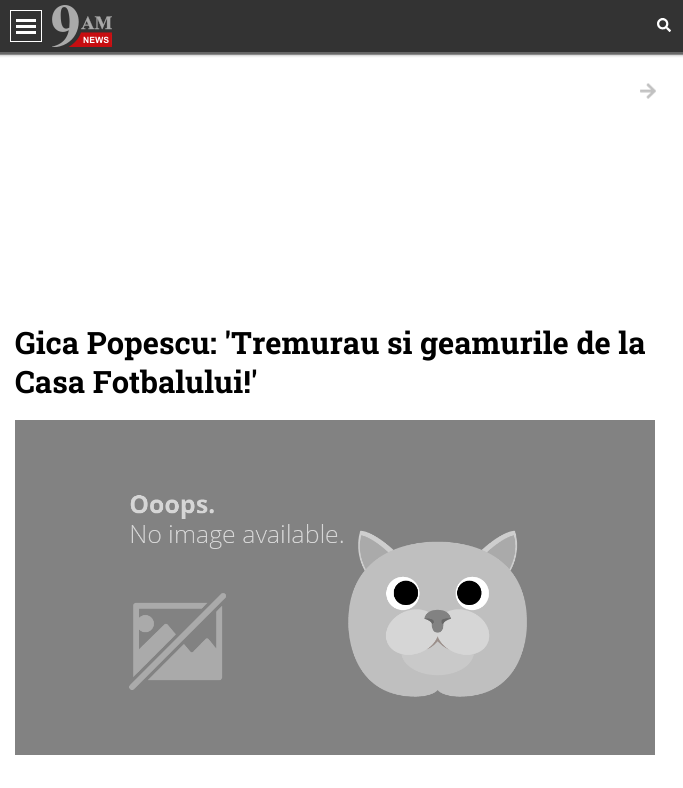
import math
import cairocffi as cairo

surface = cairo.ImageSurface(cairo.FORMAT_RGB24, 683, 788)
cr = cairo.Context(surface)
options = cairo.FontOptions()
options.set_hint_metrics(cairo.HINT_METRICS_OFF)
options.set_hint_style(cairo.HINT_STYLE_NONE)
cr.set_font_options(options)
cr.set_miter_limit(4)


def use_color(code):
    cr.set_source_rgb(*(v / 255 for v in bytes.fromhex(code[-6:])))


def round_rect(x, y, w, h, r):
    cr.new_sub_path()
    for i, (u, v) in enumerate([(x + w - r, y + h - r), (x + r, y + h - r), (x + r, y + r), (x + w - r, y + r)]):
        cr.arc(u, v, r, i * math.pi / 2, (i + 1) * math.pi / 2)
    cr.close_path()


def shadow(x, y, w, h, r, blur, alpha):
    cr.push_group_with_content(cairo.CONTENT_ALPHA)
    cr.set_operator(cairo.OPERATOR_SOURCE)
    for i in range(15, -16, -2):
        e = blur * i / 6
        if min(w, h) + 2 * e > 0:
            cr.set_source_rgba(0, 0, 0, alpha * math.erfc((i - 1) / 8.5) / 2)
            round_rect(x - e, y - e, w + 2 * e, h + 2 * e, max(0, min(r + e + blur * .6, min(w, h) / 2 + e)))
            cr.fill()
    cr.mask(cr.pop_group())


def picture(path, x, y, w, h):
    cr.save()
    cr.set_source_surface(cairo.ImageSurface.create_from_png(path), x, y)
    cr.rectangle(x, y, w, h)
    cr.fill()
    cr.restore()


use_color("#ffffff")
cr.paint()
use_color("#333333")
cr.rectangle(0, 0, 683, 52)
cr.fill()
use_color("#666666")
cr.rectangle(0, 52, 683, 4)
cr.fill()
cr.rectangle(10.5, 10.5, 31, 31)
use_color("#ffffff")
cr.set_line_width(1)
cr.stroke()
cr.rectangle(16, 19, 20, 3)
cr.fill()
cr.rectangle(16, 25, 20, 3)
cr.fill()
cr.rectangle(16, 31, 20, 3)
cr.fill()
picture("img1.png", 52, 5, 60, 42)
picture("img2.png", 657, 18, 14, 14)
use_color("#eeeeee")
shadow(-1, 55, 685, 2, 0, 0.5, 1)
picture("img3.png", 640, 83, 16, 16)
cr.select_font_face("Roboto Slab", cairo.FONT_SLANT_NORMAL, cairo.FONT_WEIGHT_BOLD)
cr.set_font_size(30.8)
use_color("#000000")
cr.move_to(15, 354)
cr.show_text("Gica Popescu: 'Tremurau si geamurile de la")
cr.move_to(15, 393)
cr.show_text("Casa Fotbalului!'")
picture("img4.png", 15, 420, 640, 335)
surface.write_to_png("result.png")
